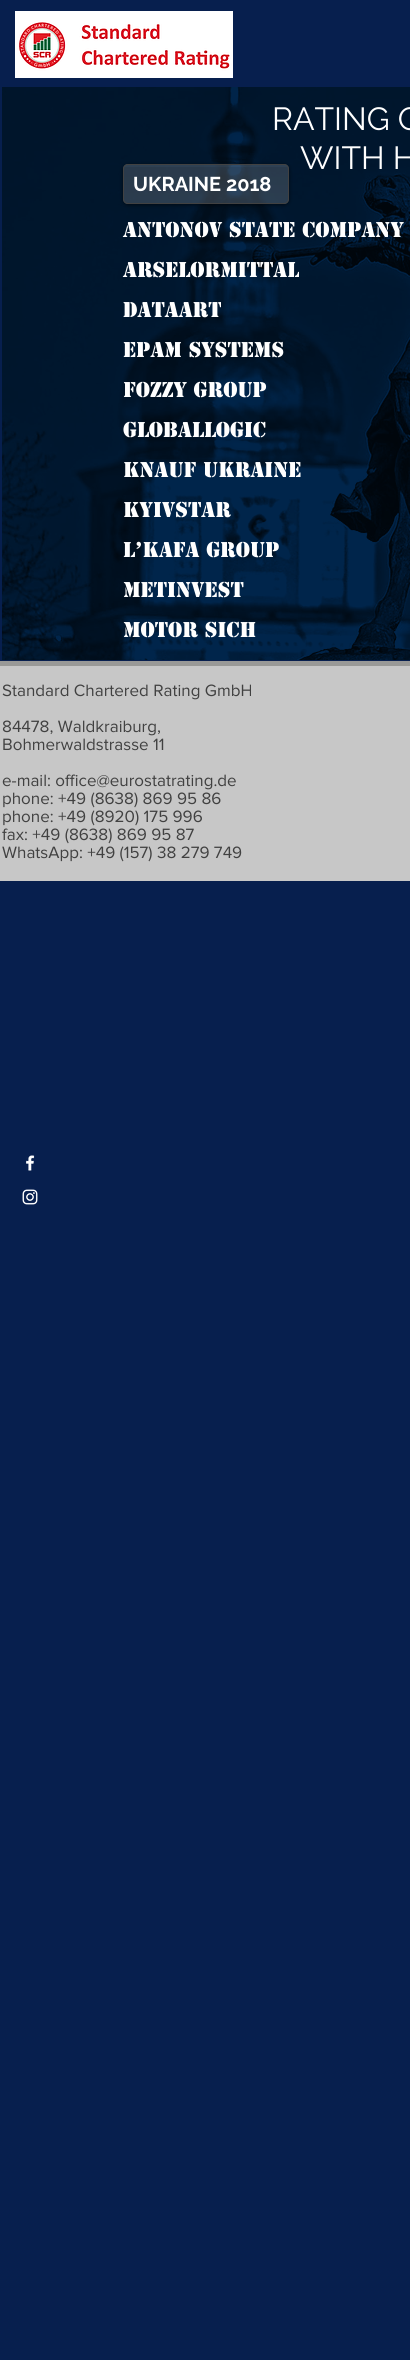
import math
import cairocffi as cairo

surface = cairo.ImageSurface(cairo.FORMAT_RGB24, 410, 2360)
cr = cairo.Context(surface)
options = cairo.FontOptions()
options.set_hint_metrics(cairo.HINT_METRICS_OFF)
options.set_hint_style(cairo.HINT_STYLE_NONE)
cr.set_font_options(options)
cr.set_miter_limit(4)


def use_color(code):
    cr.set_source_rgb(*(v / 255 for v in bytes.fromhex(code[-6:])))


def round_rect(x, y, w, h, r):
    cr.new_sub_path()
    for i, (u, v) in enumerate([(x + w - r, y + h - r), (x + r, y + h - r), (x + r, y + r), (x + w - r, y + r)]):
        cr.arc(u, v, r, i * math.pi / 2, (i + 1) * math.pi / 2)
    cr.close_path()


def shadow(x, y, w, h, r, blur, alpha):
    cr.push_group_with_content(cairo.CONTENT_ALPHA)
    cr.set_operator(cairo.OPERATOR_SOURCE)
    for i in range(15, -16, -2):
        e = blur * i / 6
        if min(w, h) + 2 * e > 0:
            cr.set_source_rgba(0, 0, 0, alpha * math.erfc((i - 1) / 8.5) / 2)
            round_rect(x - e, y - e, w + 2 * e, h + 2 * e, max(0, min(r + e + blur * .6, min(w, h) / 2 + e)))
            cr.fill()
    cr.mask(cr.pop_group())


def picture(path, x, y, w, h):
    cr.save()
    cr.set_source_surface(cairo.ImageSurface.create_from_png(path), x, y)
    cr.rectangle(x, y, w, h)
    cr.fill()
    cr.restore()


use_color("#071f4e")
cr.paint()
picture("img1.png", 15, 11, 218, 67)
picture("img2.png", 2, 87, 408, 573)
cr.select_font_face("Raleway")
cr.set_font_size(32)
use_color("#ffffff")
cr.move_to(272, 130)
cr.show_text("RATING O")
cr.move_to(300, 169)
cr.show_text("WITH H")
cr.save()
cr.set_fill_rule(cairo.FILL_RULE_EVEN_ODD)
cr.new_path()
cr.move_to(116, 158)
cr.line_to(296, 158)
cr.line_to(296, 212)
cr.line_to(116, 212)
cr.close_path()
cr.move_to(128, 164)
cr.line_to(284, 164)
cr.curve_to(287, 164, 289, 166, 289, 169)
cr.line_to(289, 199)
cr.curve_to(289, 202, 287, 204, 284, 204)
cr.line_to(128, 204)
cr.curve_to(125, 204, 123, 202, 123, 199)
cr.line_to(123, 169)
cr.curve_to(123, 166, 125, 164, 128, 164)
cr.close_path()
cr.clip()
use_color("#000000")
shadow(123, 165, 166, 40, 5, 2, 0.6)
cr.restore()
cr.set_source_rgba(1, 1, 1, 0.18)
round_rect(123, 164, 166, 40, 5)
cr.fill()
picture("img3.png", 123, 167, 166, 37)
round_rect(123.5, 164.5, 165, 39, 4.5)
use_color("#414141")
cr.set_line_width(1)
cr.stroke()
cr.select_font_face("Raleway", cairo.FONT_SLANT_NORMAL, cairo.FONT_WEIGHT_BOLD)
cr.set_font_size(20)
use_color("#ffffff")
cr.move_to(133, 191)
cr.show_text("UKRAINE 2018")
cr.select_font_face("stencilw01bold", cairo.FONT_SLANT_NORMAL, cairo.FONT_WEIGHT_BOLD)
cr.move_to(123, 237)
cr.show_text("Antonov State Company")
cr.move_to(123, 277)
cr.show_text("Arselormittal")
cr.move_to(123, 317)
cr.show_text("Dataart")
cr.move_to(123, 357)
cr.show_text("EPAM SYSTEMS")
cr.move_to(123, 397)
cr.show_text("Fozzy Group")
cr.move_to(123, 437)
cr.show_text("Globallogic")
cr.move_to(123, 477)
cr.show_text("KNAUF Ukraine")
cr.move_to(123, 517)
cr.show_text("Kyivstar")
cr.move_to(123, 557)
cr.show_text("L’Kafa Group")
cr.move_to(123, 597)
cr.show_text("Metinvest")
cr.move_to(123, 637)
cr.show_text("Motor Sich")
use_color("#c7c7c7")
cr.rectangle(0, 666, 410, 215)
cr.fill()
use_color("#999997")
cr.rectangle(0, 661, 410, 5)
cr.fill()
cr.select_font_face("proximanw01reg")
cr.set_font_size(17)
use_color("#414141")
cr.move_to(2, 696)
cr.show_text("Standard Chartered Rating GmbH")
cr.move_to(2, 732)
cr.show_text("84478, Waldkraiburg,")
cr.move_to(2, 750)
cr.show_text("Bohmerwaldstrasse 11")
cr.move_to(2, 786)
cr.show_text("e-mail: office@eurostatrating.de")
cr.move_to(2, 804)
cr.show_text("phone: +49 (8638) 869 95 86")
cr.move_to(2, 822)
cr.show_text("phone: +49 (8920) 175 996")
cr.move_to(2, 840)
cr.show_text("fax: +49 (8638) 869 95 87")
cr.move_to(2, 858)
cr.show_text("WhatsApp: +49 (157) 38 279 749")
picture("img4.png", 26, 1155, 9, 16)
picture("img5.png", 22, 1189, 16, 16)
surface.write_to_png("result.png")
